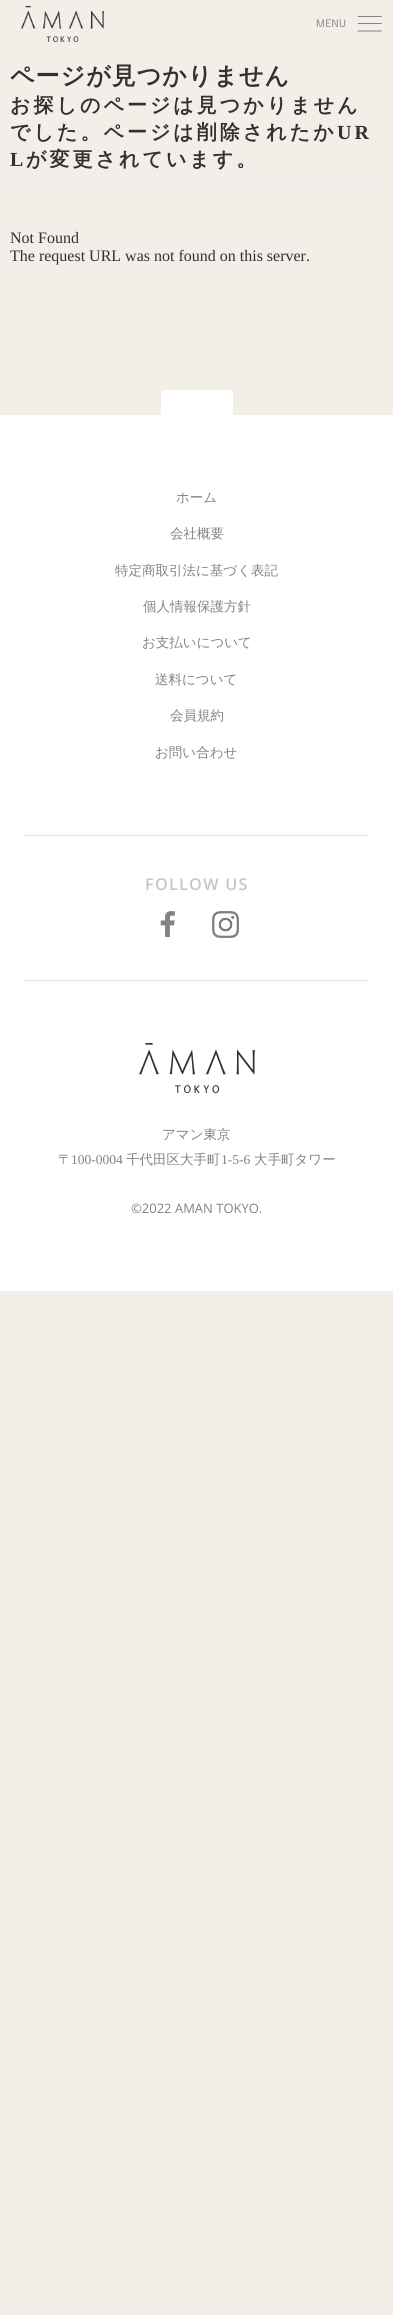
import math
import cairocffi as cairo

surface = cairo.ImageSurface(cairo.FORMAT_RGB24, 393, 2315)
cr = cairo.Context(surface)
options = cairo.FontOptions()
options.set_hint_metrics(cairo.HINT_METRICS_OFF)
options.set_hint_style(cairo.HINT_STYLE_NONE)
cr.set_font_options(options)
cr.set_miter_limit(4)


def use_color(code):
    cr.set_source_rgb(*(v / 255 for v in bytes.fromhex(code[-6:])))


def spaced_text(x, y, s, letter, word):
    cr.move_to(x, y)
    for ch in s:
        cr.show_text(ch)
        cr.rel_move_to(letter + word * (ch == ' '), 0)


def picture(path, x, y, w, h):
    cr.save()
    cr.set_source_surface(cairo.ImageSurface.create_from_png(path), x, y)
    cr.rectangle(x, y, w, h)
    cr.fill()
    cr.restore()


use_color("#f3eee7")
cr.paint()
picture("img1.png", 21, 6, 83, 36)
picture("img2.png", 316, 16, 66, 16)
use_color("#eeeeee")
cr.rectangle(0, 178, 393, 1)
cr.fill()
cr.select_font_face("WenQuanYi Zen Hei", cairo.FONT_SLANT_NORMAL, cairo.FONT_WEIGHT_BOLD)
cr.set_font_size(24)
use_color("#313131")
spaced_text(10, 84, "ページが見つかりません", 1, 0)
cr.set_font_size(20)
spaced_text(10, 112, "お探しのページは見つかりません", 3, 0)
spaced_text(10, 139, "でした。ページは削除されたか", 3, 0)
cr.select_font_face("Liberation Serif", cairo.FONT_SLANT_NORMAL, cairo.FONT_WEIGHT_BOLD)
spaced_text(337, 139, "UR", 3, 0)
spaced_text(10, 166, "L", 3, 0)
cr.select_font_face("WenQuanYi Zen Hei", cairo.FONT_SLANT_NORMAL, cairo.FONT_WEIGHT_BOLD)
spaced_text(26, 166, "が変更されています。", 3, 0)
cr.select_font_face("Liberation Serif")
cr.set_font_size(16)
cr.move_to(10, 243)
cr.show_text("Not Found")
cr.move_to(10, 261)
cr.show_text("The request URL was not found on this server.")
use_color("#ffffff")
cr.rectangle(0, 415, 393, 876)
cr.fill()
cr.new_path()
cr.move_to(164, 390)
cr.line_to(230, 390)
cr.curve_to(231.5, 390, 233, 391.5, 233, 393)
cr.line_to(233, 415)
cr.line_to(161, 415)
cr.line_to(161, 393)
cr.curve_to(161, 391.5, 162.5, 390, 164, 390)
cr.close_path()
cr.fill()
cr.select_font_face("WenQuanYi Zen Hei Medium")
cr.set_font_size(13.5)
use_color("#82847f")
cr.move_to(176, 502)
cr.show_text("ホーム")
cr.move_to(170, 538)
cr.show_text("会社概要")
cr.move_to(115, 575)
cr.show_text("特定商取引法に基づく表記")
cr.move_to(143, 611)
cr.show_text("個人情報保護方針")
cr.move_to(142, 647)
cr.show_text("お支払いについて")
cr.move_to(155, 684)
cr.show_text("送料について")
cr.move_to(170, 720)
cr.show_text("会員規約")
cr.move_to(155, 757)
cr.show_text("お問い合わせ")
use_color("#e3dfdb")
cr.rectangle(25, 835, 343, 1)
cr.fill()
cr.rectangle(25, 980, 343, 1)
cr.fill()
cr.select_font_face("Open Sans SemiBold")
cr.set_font_size(16.25)
use_color("#c9c5c2")
spaced_text(145, 890, "FOLLOW US", 1.25, 0)
picture("img3.png", 160, 911, 15, 26)
picture("img4.png", 212, 911, 27, 27)
picture("img5.png", 139, 1043, 116, 50)
cr.select_font_face("WenQuanYi Zen Hei Medium")
cr.set_font_size(13.5)
use_color("#82847f")
cr.move_to(162, 1139)
cr.show_text("アマン東京")
cr.move_to(58, 1164)
cr.show_text("〒")
cr.select_font_face("Liberation Serif")
cr.move_to(71, 1164)
cr.show_text("100-0004")
cr.select_font_face("WenQuanYi Zen Hei Medium")
cr.move_to(126, 1164)
cr.show_text("千代田区大手町")
cr.select_font_face("Liberation Serif")
cr.move_to(221, 1164)
cr.show_text("1-5-6")
cr.select_font_face("WenQuanYi Zen Hei Medium")
cr.move_to(254, 1164)
cr.show_text("大手町タワー")
cr.select_font_face("Open Sans")
cr.set_font_size(13)
cr.move_to(131, 1213)
cr.show_text("©2022 AMAN TOKYO.")
surface.write_to_png("result.png")
